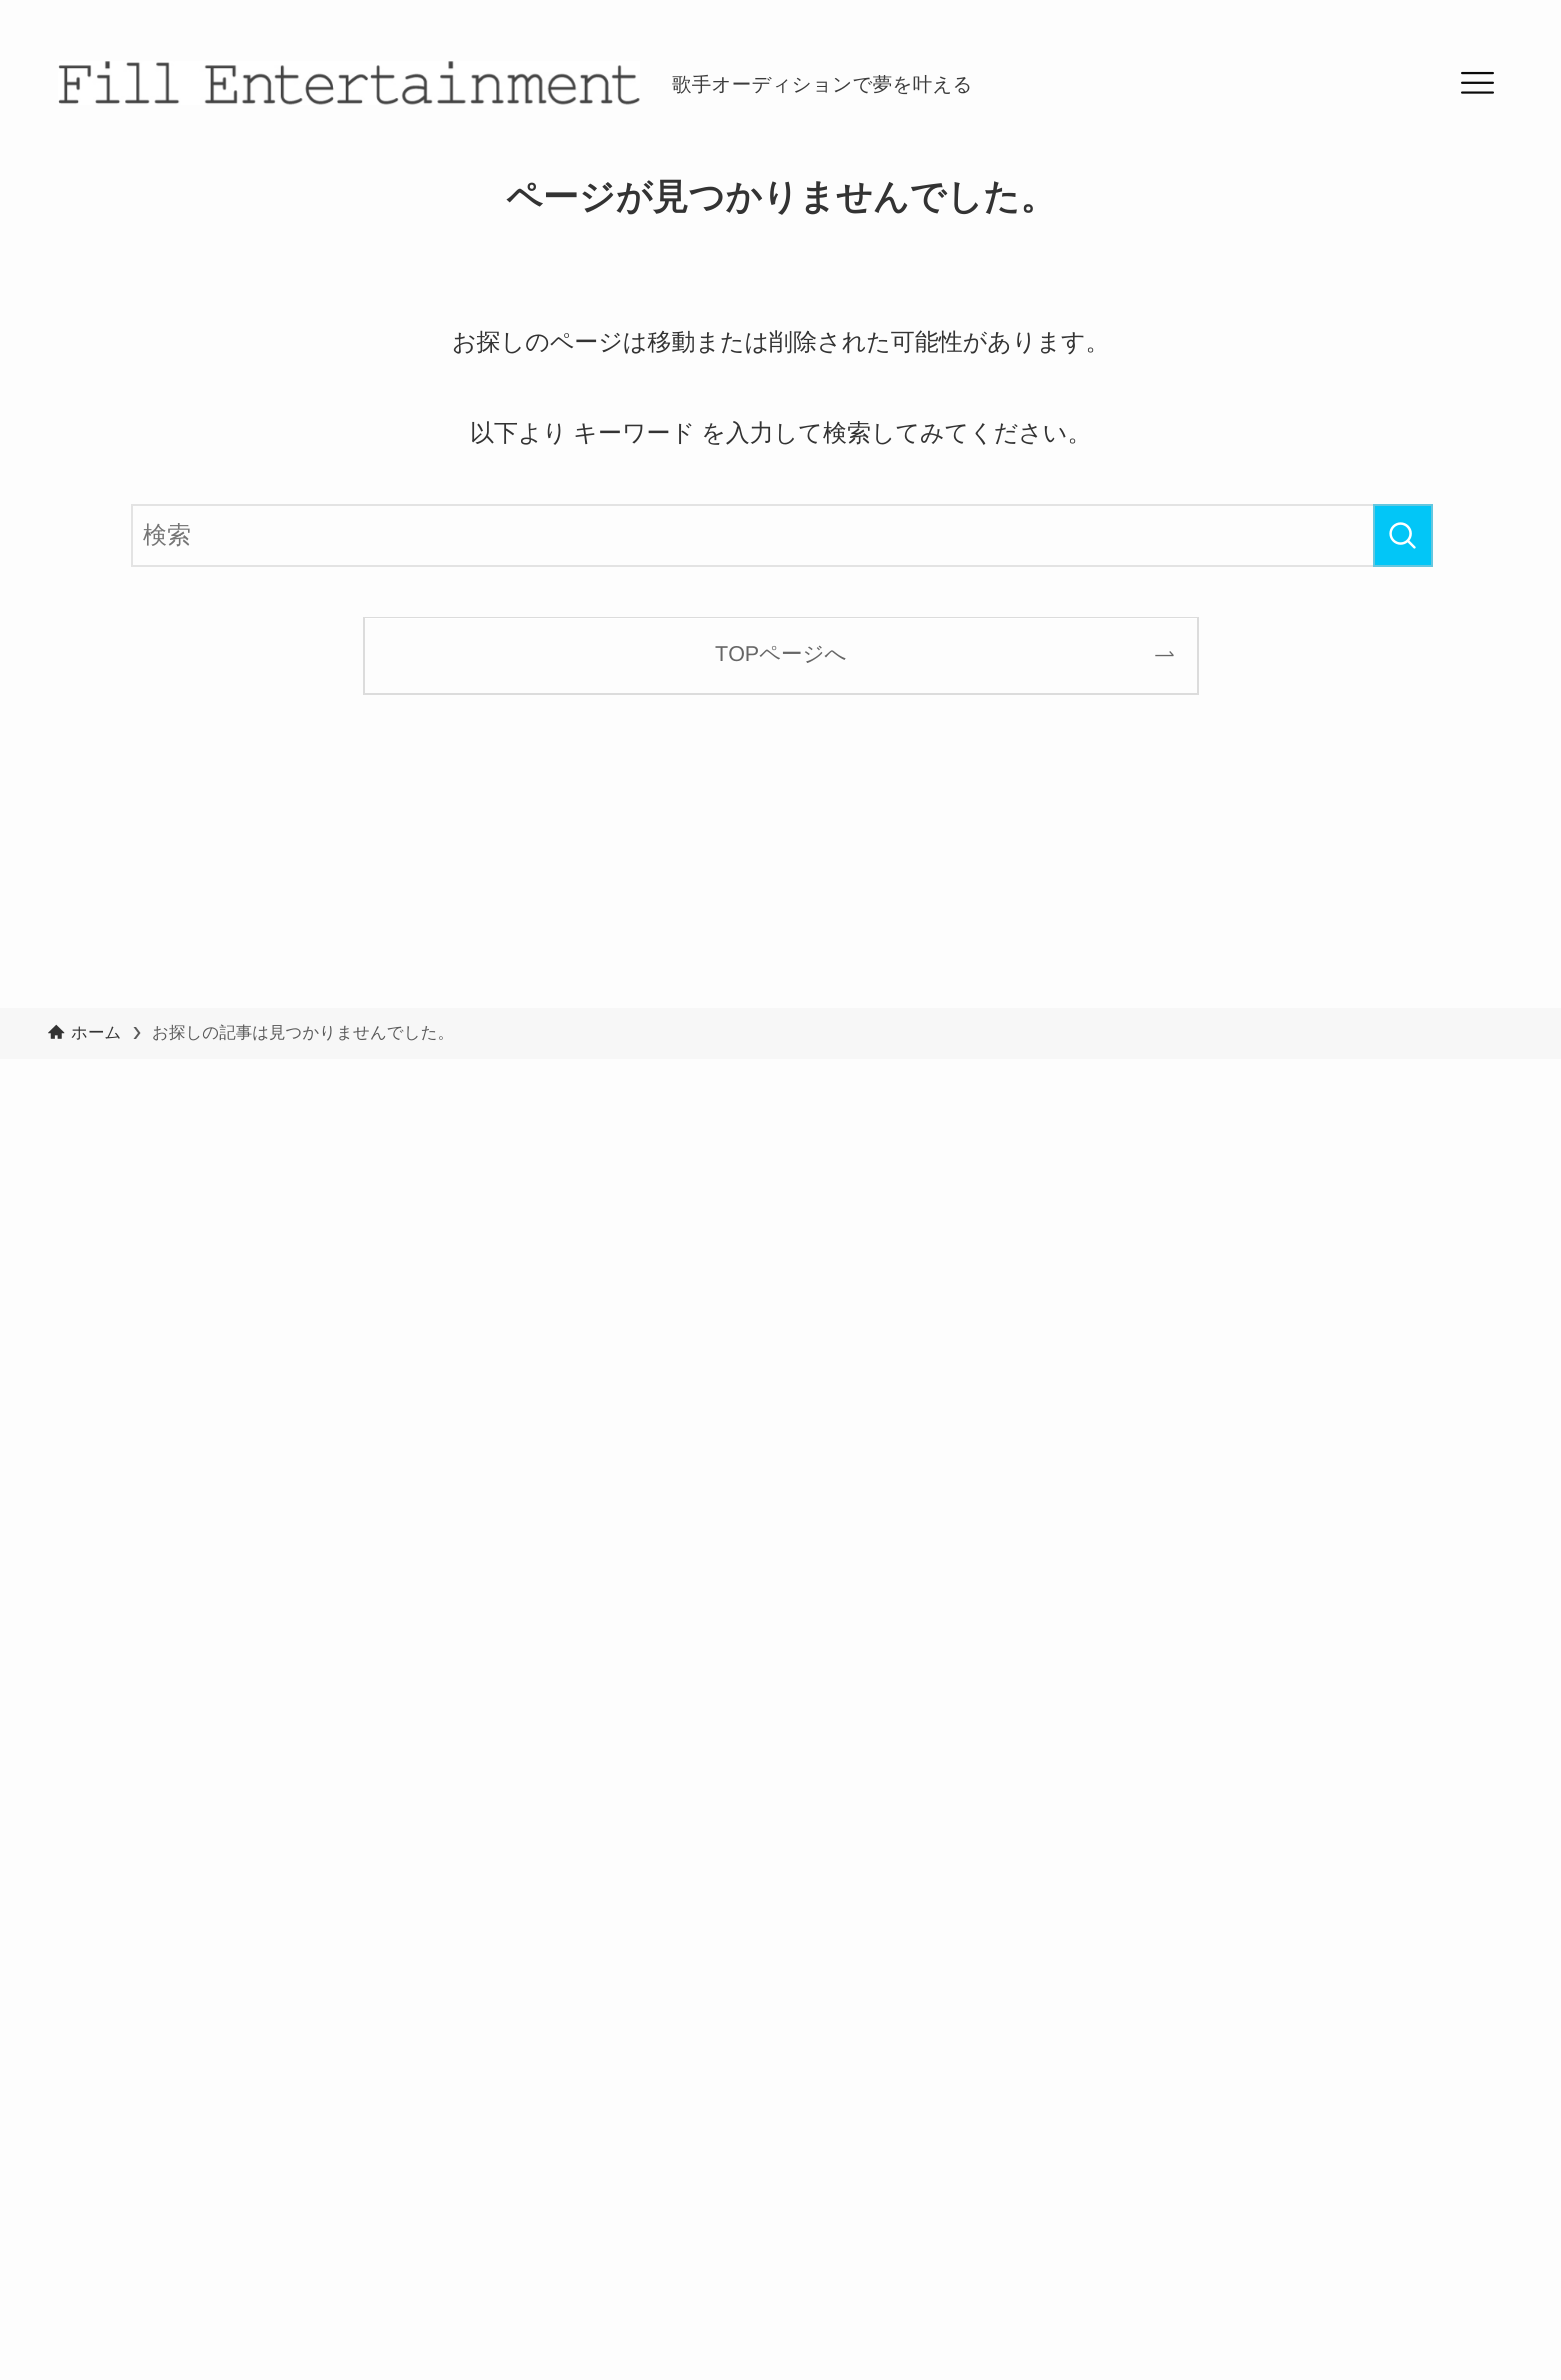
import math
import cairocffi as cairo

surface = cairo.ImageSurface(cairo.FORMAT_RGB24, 1561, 2380)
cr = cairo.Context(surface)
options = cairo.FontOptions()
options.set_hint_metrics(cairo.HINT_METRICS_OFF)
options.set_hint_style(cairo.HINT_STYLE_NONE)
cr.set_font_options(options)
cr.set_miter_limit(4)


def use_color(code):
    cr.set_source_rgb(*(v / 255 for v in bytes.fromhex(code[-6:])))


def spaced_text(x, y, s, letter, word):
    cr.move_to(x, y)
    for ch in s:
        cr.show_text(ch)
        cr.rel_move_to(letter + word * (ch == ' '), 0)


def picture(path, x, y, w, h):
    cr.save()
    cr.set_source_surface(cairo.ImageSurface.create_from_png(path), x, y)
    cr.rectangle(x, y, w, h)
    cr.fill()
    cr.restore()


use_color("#fdfdfd")
cr.paint()
picture("img1.png", 58, 61, 582, 44)
cr.select_font_face("WenQuanYi Zen Hei Medium")
cr.set_font_size(19.5)
use_color("#3b3b3b")
spaced_text(672, 91, "歌手オーディションで夢を叶える", 0.25, 0)
picture("img2.png", 1461, 71, 33, 23)
cr.select_font_face("WenQuanYi Zen Hei", cairo.FONT_SLANT_NORMAL, cairo.FONT_WEIGHT_BOLD)
cr.set_font_size(36)
use_color("#333333")
cr.move_to(506, 209)
cr.show_text("ページが見つかりませんでした。")
cr.select_font_face("WenQuanYi Zen Hei Medium")
cr.set_font_size(24)
cr.move_to(452, 350)
cr.show_text("お探しのページは移動または削除された可能性があります。")
spaced_text(470, 441, "以下より キーワード を入力して検索してみてください。", 0, -1)
cr.rectangle(132, 505, 1300, 61)
use_color("#e3e3e3")
cr.stroke()
use_color("#757575")
cr.move_to(143, 543)
cr.show_text("検索")
use_color("#02c6f7")
cr.rectangle(1374, 505, 58, 61)
cr.fill_preserve()
use_color("#65c7df")
cr.stroke()
picture("img3.png", 1389, 522, 27, 27)
cr.rectangle(364, 618, 834, 76)
use_color("#dcdcdc")
cr.stroke()
use_color("#ffffff")
cr.rectangle(365, 618, 832, 1)
cr.fill()
cr.select_font_face("Liberation Sans")
cr.set_font_size(21.5)
use_color("#666666")
cr.move_to(715, 661)
cr.show_text("TOP")
cr.select_font_face("WenQuanYi Zen Hei Medium")
cr.move_to(759, 661)
cr.show_text("ページへ")
picture("img4.png", 1155, 651, 19, 6)
use_color("#f7f7f7")
cr.rectangle(0, 1008, 1561, 51)
cr.fill()
picture("img5.png", 48, 1024, 17, 15)
cr.set_font_size(16.5)
use_color("#333333")
cr.move_to(71, 1038)
cr.show_text("ホーム")
use_color("#5a5a5a")
cr.new_path()
cr.move_to(136, 1027)
cr.line_to(133.5, 1027)
cr.line_to(138, 1033)
cr.line_to(133.5, 1039)
cr.line_to(136, 1039)
cr.line_to(140.5, 1033)
cr.close_path()
cr.fill()
cr.move_to(152, 1038)
cr.show_text("お探しの記事は見つかりませんでした。")
surface.write_to_png("result.png")
